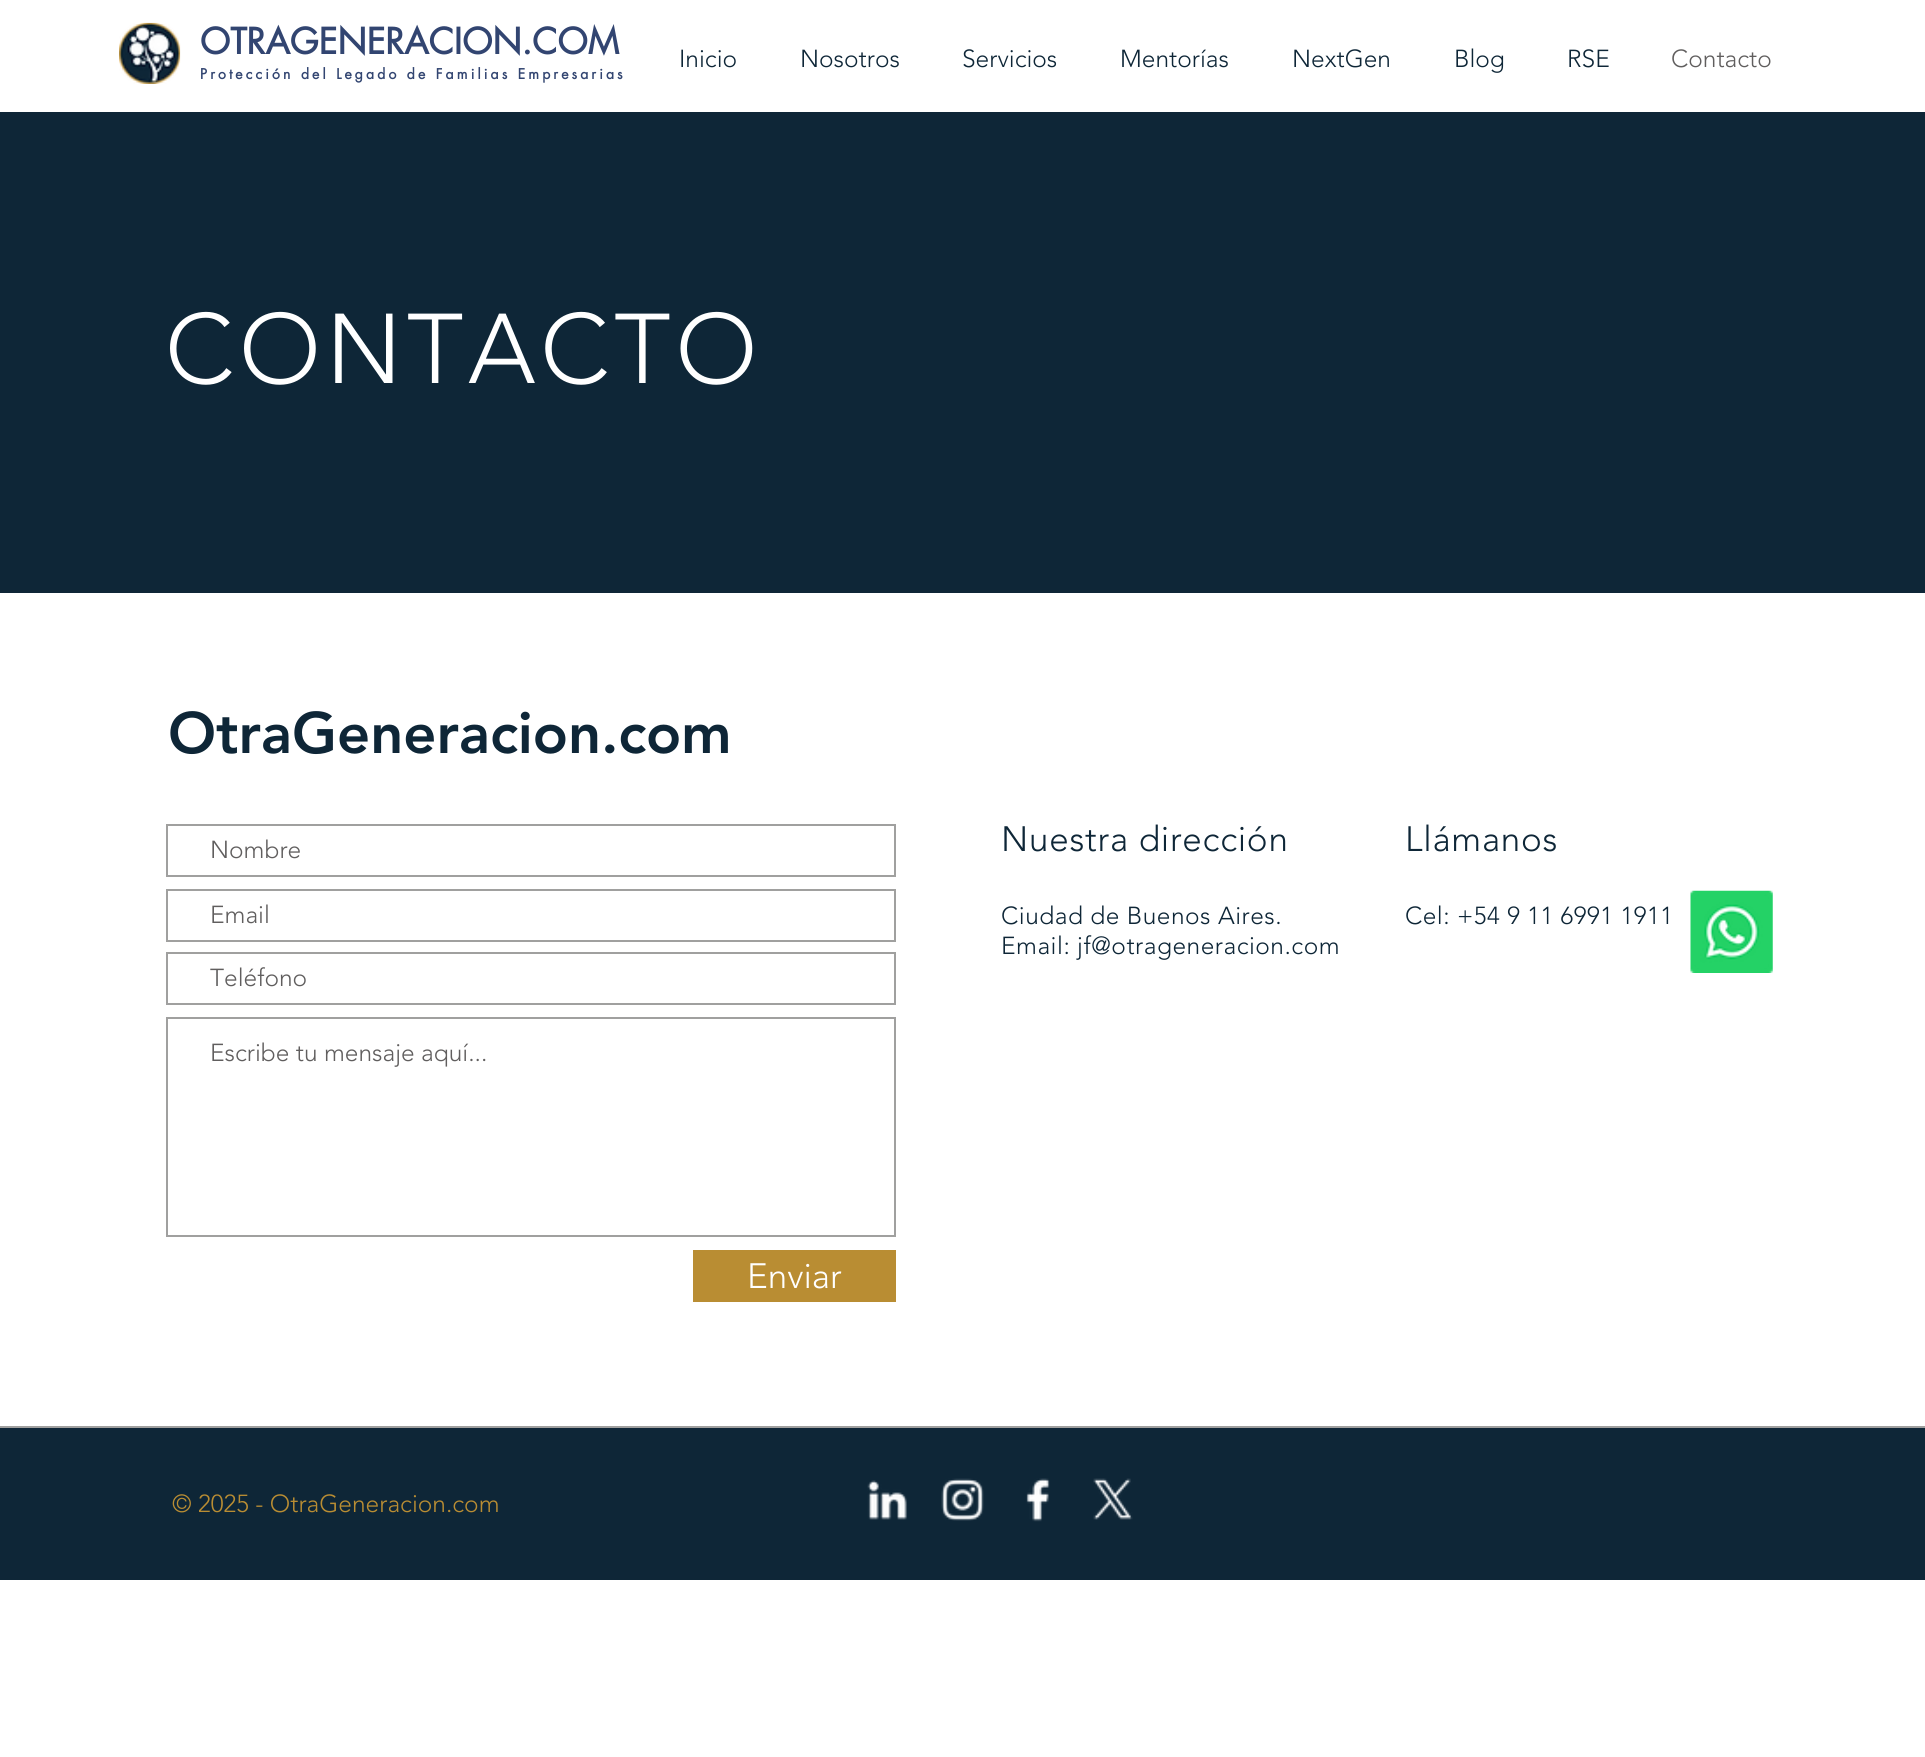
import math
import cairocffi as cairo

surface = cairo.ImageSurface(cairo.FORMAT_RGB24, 1925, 1757)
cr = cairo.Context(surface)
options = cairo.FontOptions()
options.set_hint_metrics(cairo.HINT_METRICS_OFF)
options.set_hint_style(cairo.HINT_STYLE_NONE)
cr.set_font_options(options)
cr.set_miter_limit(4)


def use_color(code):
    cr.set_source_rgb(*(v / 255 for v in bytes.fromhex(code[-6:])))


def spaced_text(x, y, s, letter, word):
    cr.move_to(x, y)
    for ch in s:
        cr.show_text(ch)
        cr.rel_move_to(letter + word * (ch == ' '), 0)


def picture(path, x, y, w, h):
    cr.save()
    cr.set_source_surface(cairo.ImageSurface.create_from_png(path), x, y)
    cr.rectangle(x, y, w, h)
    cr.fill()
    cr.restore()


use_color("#ffffff")
cr.paint()
picture("img1.png", 119, 22, 62, 62)
cr.select_font_face("futura", cairo.FONT_SLANT_NORMAL, cairo.FONT_WEIGHT_BOLD)
cr.set_font_size(35)
use_color("#324571")
cr.move_to(200, 54)
cr.show_text("OTRAGENERACION.COM")
cr.select_font_face("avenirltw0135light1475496 Light")
cr.set_font_size(24.5)
use_color("#0e2637")
cr.move_to(679, 67)
cr.show_text("Inicio")
cr.move_to(800, 67)
cr.show_text("Nosotros")
cr.move_to(962, 67)
cr.show_text("Servicios")
cr.move_to(1120, 67)
cr.show_text("Mentorías")
cr.move_to(1292, 67)
cr.show_text("NextGen")
cr.move_to(1454, 67)
cr.show_text("Blog")
cr.move_to(1567, 67)
cr.show_text("RSE")
use_color("#605e5e")
cr.move_to(1671, 67)
cr.show_text("Contacto")
cr.select_font_face("futura", cairo.FONT_SLANT_NORMAL, cairo.FONT_WEIGHT_BOLD)
cr.set_font_size(14)
use_color("#324571")
spaced_text(200, 79, "Protección del Legado de Familias Empresarias", 3.1, 0)
use_color("#0e2637")
cr.rectangle(0, 112, 1925, 481)
cr.fill()
cr.select_font_face("avenirltw0135light1475496 Light")
cr.set_font_size(98)
use_color("#ffffff")
spaced_text(165, 383, "CONTACTO", 5, 0)
cr.select_font_face("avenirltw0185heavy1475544 Black")
cr.set_font_size(57.75)
use_color("#0e2637")
cr.move_to(168, 753)
cr.show_text("OtraGeneracion.com")
cr.rectangle(167, 825, 728, 51)
use_color("#a0a09f")
cr.stroke()
cr.select_font_face("avenirltw0135light1475496 Light")
cr.set_font_size(24.5)
use_color("#605e5e")
cr.move_to(210, 858)
cr.show_text("Nombre")
cr.rectangle(167, 890, 728, 51)
use_color("#a0a09f")
cr.stroke()
use_color("#605e5e")
cr.move_to(210, 923)
cr.show_text("Email")
cr.rectangle(167, 953, 728, 51)
use_color("#a0a09f")
cr.stroke()
use_color("#605e5e")
cr.move_to(210, 986)
cr.show_text("Teléfono")
cr.rectangle(167, 1018, 728, 218)
use_color("#a0a09f")
cr.stroke()
use_color("#605e5e")
cr.move_to(210, 1061)
cr.show_text("Escribe tu mensaje aquí...")
use_color("#b98d33")
cr.rectangle(693, 1250, 203, 52)
cr.fill()
cr.set_font_size(35)
use_color("#ffffff")
cr.move_to(747, 1288)
cr.show_text("Enviar")
use_color("#0e2637")
spaced_text(1001, 851, "Nuestra dirección", 0.75, 0)
cr.set_font_size(24.5)
spaced_text(1001, 924, "Ciudad de Buenos Aires.", 0.5, 0)
spaced_text(1001, 954, "Email: jf@otrageneracion.com", 0.5, 0)
cr.set_font_size(35)
spaced_text(1405, 851, "Llámanos", 0.75, 0)
cr.set_font_size(24.5)
spaced_text(1405, 924, "Cel: +54 9 11 6991 1911", 0.5, 0)
picture("img2.png", 1690, 890, 83, 83)
cr.rectangle(0, 1428, 1925, 152)
cr.fill()
use_color("#a0a09f")
cr.rectangle(0, 1426, 1925, 2)
cr.fill()
use_color("#b98d33")
cr.move_to(172, 1512)
cr.show_text("© 2025 - OtraGeneracion.com")
picture("img3.png", 867, 1480, 40, 40)
picture("img4.png", 941, 1478, 43, 43)
picture("img5.png", 1026, 1478, 24, 44)
picture("img6.png", 1093, 1478, 40, 42)
surface.write_to_png("result.png")
